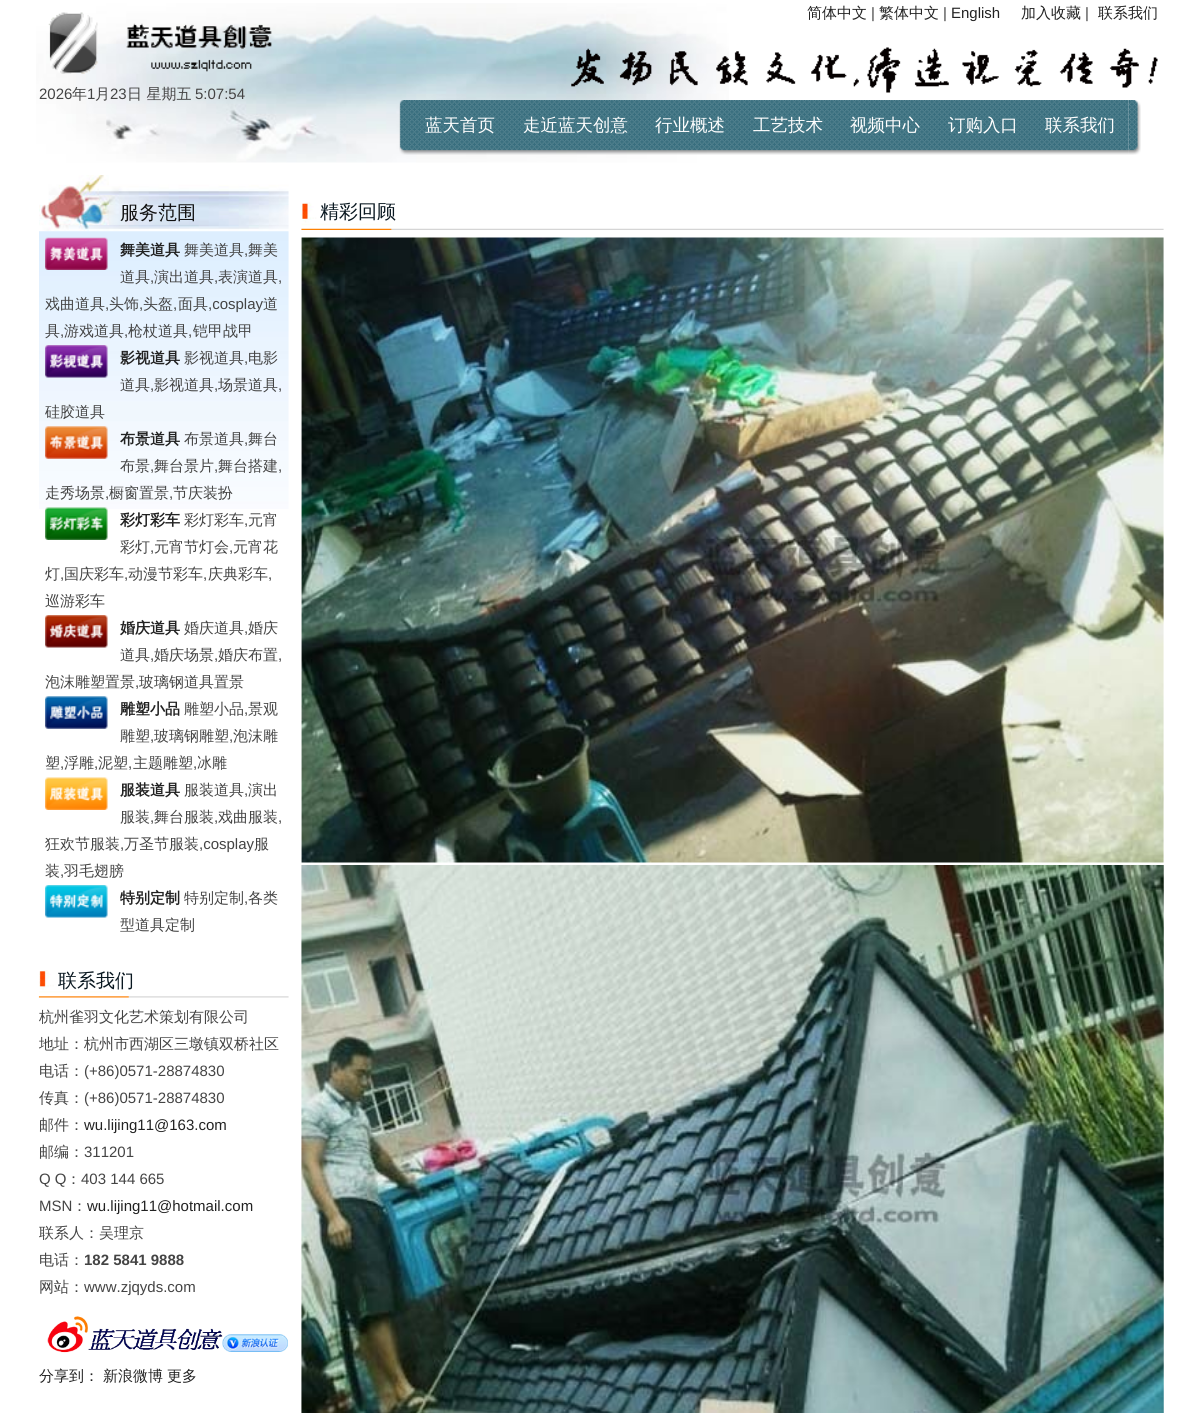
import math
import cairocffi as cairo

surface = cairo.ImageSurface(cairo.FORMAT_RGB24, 1202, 1413)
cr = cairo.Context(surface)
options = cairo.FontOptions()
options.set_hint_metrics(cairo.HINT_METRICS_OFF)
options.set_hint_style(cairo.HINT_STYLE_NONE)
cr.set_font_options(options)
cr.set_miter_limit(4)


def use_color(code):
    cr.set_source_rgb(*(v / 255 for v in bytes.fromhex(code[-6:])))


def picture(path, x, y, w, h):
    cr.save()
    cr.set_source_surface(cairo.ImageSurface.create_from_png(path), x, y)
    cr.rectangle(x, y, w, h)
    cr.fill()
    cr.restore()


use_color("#ffffff")
cr.paint()
picture("img1.png", 36, 3, 693, 160)
cr.select_font_face("WenQuanYi Zen Hei Medium")
cr.set_font_size(15)
use_color("#222222")
cr.move_to(807, 18)
cr.show_text("简体中文")
cr.select_font_face("Liberation Sans")
use_color("#444444")
cr.move_to(871, 18)
cr.show_text("|")
cr.select_font_face("WenQuanYi Zen Hei Medium")
use_color("#222222")
cr.move_to(879, 18)
cr.show_text("繁体中文")
cr.select_font_face("Liberation Sans")
use_color("#444444")
cr.move_to(943, 18)
cr.show_text("|")
use_color("#222222")
cr.move_to(951, 18)
cr.show_text("English")
cr.select_font_face("WenQuanYi Zen Hei Medium")
cr.move_to(1021, 18)
cr.show_text("加入收藏")
cr.select_font_face("Liberation Sans")
use_color("#444444")
cr.move_to(1085, 18)
cr.show_text("|")
cr.select_font_face("WenQuanYi Zen Hei Medium")
use_color("#222222")
cr.move_to(1098, 18)
cr.show_text("联系我们")
picture("img2.png", 48, 12, 224, 62)
picture("img3.png", 571, 47, 587, 46)
cr.select_font_face("Liberation Sans")
use_color("#444444")
cr.move_to(39, 99)
cr.show_text("2026")
cr.select_font_face("WenQuanYi Zen Hei Medium")
cr.move_to(72, 99)
cr.show_text("年")
cr.select_font_face("Liberation Sans")
cr.move_to(87, 99)
cr.show_text("1")
cr.select_font_face("WenQuanYi Zen Hei Medium")
cr.move_to(95, 99)
cr.show_text("月")
cr.select_font_face("Liberation Sans")
cr.move_to(110, 99)
cr.show_text("23")
cr.select_font_face("WenQuanYi Zen Hei Medium")
cr.move_to(127, 99)
cr.show_text("日 星期五")
cr.select_font_face("Liberation Sans")
cr.move_to(195, 99)
cr.show_text("5:07:54")
picture("img4.png", 1128, 100, 13, 55)
picture("img5.png", 399, 100, 730, 55)
cr.select_font_face("WenQuanYi Zen Hei Medium")
cr.set_font_size(17.5)
use_color("#fefefe")
cr.move_to(425, 131)
cr.show_text("蓝天首页")
cr.move_to(523, 131)
cr.show_text("走近蓝天创意")
cr.move_to(655, 131)
cr.show_text("行业概述")
cr.move_to(753, 131)
cr.show_text("工艺技术")
cr.move_to(850, 131)
cr.show_text("视频中心")
cr.move_to(948, 131)
cr.show_text("订购入口")
cr.move_to(1045, 131)
cr.show_text("联系我们")
picture("img6.png", 39, 175, 250, 56)
cr.set_font_size(19)
use_color("#111111")
cr.move_to(120, 219)
cr.show_text("服务范围")
picture("img7.png", 39, 231, 250, 278)
picture("img8.png", 45, 237, 63, 33)
cr.select_font_face("WenQuanYi Zen Hei", cairo.FONT_SLANT_NORMAL, cairo.FONT_WEIGHT_BOLD)
cr.set_font_size(15)
use_color("#222222")
cr.move_to(120, 255)
cr.show_text("舞美道具")
cr.select_font_face("WenQuanYi Zen Hei Medium")
use_color("#444444")
cr.move_to(184, 255)
cr.show_text("舞美道具")
cr.select_font_face("Liberation Sans")
cr.move_to(244, 255)
cr.show_text(",")
cr.select_font_face("WenQuanYi Zen Hei Medium")
cr.move_to(248, 255)
cr.show_text("舞美")
cr.move_to(120, 282)
cr.show_text("道具")
cr.select_font_face("Liberation Sans")
cr.move_to(150, 282)
cr.show_text(",")
cr.select_font_face("WenQuanYi Zen Hei Medium")
cr.move_to(154, 282)
cr.show_text("演出道具")
cr.select_font_face("Liberation Sans")
cr.move_to(214, 282)
cr.show_text(",")
cr.select_font_face("WenQuanYi Zen Hei Medium")
cr.move_to(218, 282)
cr.show_text("表演道具")
cr.select_font_face("Liberation Sans")
cr.move_to(278, 282)
cr.show_text(",")
cr.select_font_face("WenQuanYi Zen Hei Medium")
cr.move_to(45, 309)
cr.show_text("戏曲道具")
cr.select_font_face("Liberation Sans")
cr.move_to(105, 309)
cr.show_text(",")
cr.select_font_face("WenQuanYi Zen Hei Medium")
cr.move_to(109, 309)
cr.show_text("头饰")
cr.select_font_face("Liberation Sans")
cr.move_to(139, 309)
cr.show_text(",")
cr.select_font_face("WenQuanYi Zen Hei Medium")
cr.move_to(143, 309)
cr.show_text("头盔")
cr.select_font_face("Liberation Sans")
cr.move_to(173, 309)
cr.show_text(",")
cr.select_font_face("WenQuanYi Zen Hei Medium")
cr.move_to(178, 309)
cr.show_text("面具")
cr.select_font_face("Liberation Sans")
cr.move_to(208, 309)
cr.show_text(",cosplay")
cr.select_font_face("WenQuanYi Zen Hei Medium")
cr.move_to(263, 309)
cr.show_text("道")
cr.move_to(45, 336)
cr.show_text("具")
cr.select_font_face("Liberation Sans")
cr.move_to(60, 336)
cr.show_text(",")
cr.select_font_face("WenQuanYi Zen Hei Medium")
cr.move_to(64, 336)
cr.show_text("游戏道具")
cr.select_font_face("Liberation Sans")
cr.move_to(124, 336)
cr.show_text(",")
cr.select_font_face("WenQuanYi Zen Hei Medium")
cr.move_to(128, 336)
cr.show_text("枪杖道具")
cr.select_font_face("Liberation Sans")
cr.move_to(188, 336)
cr.show_text(",")
cr.select_font_face("WenQuanYi Zen Hei Medium")
cr.move_to(193, 336)
cr.show_text("铠甲战甲")
picture("img9.png", 45, 345, 63, 33)
cr.select_font_face("WenQuanYi Zen Hei", cairo.FONT_SLANT_NORMAL, cairo.FONT_WEIGHT_BOLD)
use_color("#222222")
cr.move_to(120, 363)
cr.show_text("影视道具")
cr.select_font_face("WenQuanYi Zen Hei Medium")
use_color("#444444")
cr.move_to(184, 363)
cr.show_text("影视道具")
cr.select_font_face("Liberation Sans")
cr.move_to(244, 363)
cr.show_text(",")
cr.select_font_face("WenQuanYi Zen Hei Medium")
cr.move_to(248, 363)
cr.show_text("电影")
cr.move_to(120, 390)
cr.show_text("道具")
cr.select_font_face("Liberation Sans")
cr.move_to(150, 390)
cr.show_text(",")
cr.select_font_face("WenQuanYi Zen Hei Medium")
cr.move_to(154, 390)
cr.show_text("影视道具")
cr.select_font_face("Liberation Sans")
cr.move_to(214, 390)
cr.show_text(",")
cr.select_font_face("WenQuanYi Zen Hei Medium")
cr.move_to(218, 390)
cr.show_text("场景道具")
cr.select_font_face("Liberation Sans")
cr.move_to(278, 390)
cr.show_text(",")
cr.select_font_face("WenQuanYi Zen Hei Medium")
cr.move_to(45, 417)
cr.show_text("硅胶道具")
picture("img10.png", 45, 426, 63, 33)
cr.select_font_face("WenQuanYi Zen Hei", cairo.FONT_SLANT_NORMAL, cairo.FONT_WEIGHT_BOLD)
use_color("#222222")
cr.move_to(120, 444)
cr.show_text("布景道具")
cr.select_font_face("WenQuanYi Zen Hei Medium")
use_color("#444444")
cr.move_to(184, 444)
cr.show_text("布景道具")
cr.select_font_face("Liberation Sans")
cr.move_to(244, 444)
cr.show_text(",")
cr.select_font_face("WenQuanYi Zen Hei Medium")
cr.move_to(248, 444)
cr.show_text("舞台")
cr.move_to(120, 471)
cr.show_text("布景")
cr.select_font_face("Liberation Sans")
cr.move_to(150, 471)
cr.show_text(",")
cr.select_font_face("WenQuanYi Zen Hei Medium")
cr.move_to(154, 471)
cr.show_text("舞台景片")
cr.select_font_face("Liberation Sans")
cr.move_to(214, 471)
cr.show_text(",")
cr.select_font_face("WenQuanYi Zen Hei Medium")
cr.move_to(218, 471)
cr.show_text("舞台搭建")
cr.select_font_face("Liberation Sans")
cr.move_to(278, 471)
cr.show_text(",")
cr.select_font_face("WenQuanYi Zen Hei Medium")
cr.move_to(45, 498)
cr.show_text("走秀场景")
cr.select_font_face("Liberation Sans")
cr.move_to(105, 498)
cr.show_text(",")
cr.select_font_face("WenQuanYi Zen Hei Medium")
cr.move_to(109, 498)
cr.show_text("橱窗置景")
cr.select_font_face("Liberation Sans")
cr.move_to(169, 498)
cr.show_text(",")
cr.select_font_face("WenQuanYi Zen Hei Medium")
cr.move_to(173, 498)
cr.show_text("节庆装扮")
picture("img11.png", 45, 507, 63, 33)
cr.select_font_face("WenQuanYi Zen Hei", cairo.FONT_SLANT_NORMAL, cairo.FONT_WEIGHT_BOLD)
use_color("#222222")
cr.move_to(120, 525)
cr.show_text("彩灯彩车")
cr.select_font_face("WenQuanYi Zen Hei Medium")
use_color("#444444")
cr.move_to(184, 525)
cr.show_text("彩灯彩车")
cr.select_font_face("Liberation Sans")
cr.move_to(244, 525)
cr.show_text(",")
cr.select_font_face("WenQuanYi Zen Hei Medium")
cr.move_to(248, 525)
cr.show_text("元宵")
cr.move_to(120, 552)
cr.show_text("彩灯")
cr.select_font_face("Liberation Sans")
cr.move_to(150, 552)
cr.show_text(",")
cr.select_font_face("WenQuanYi Zen Hei Medium")
cr.move_to(154, 552)
cr.show_text("元宵节灯会")
cr.select_font_face("Liberation Sans")
cr.move_to(229, 552)
cr.show_text(",")
cr.select_font_face("WenQuanYi Zen Hei Medium")
cr.move_to(233, 552)
cr.show_text("元宵花")
cr.move_to(45, 579)
cr.show_text("灯")
cr.select_font_face("Liberation Sans")
cr.move_to(60, 579)
cr.show_text(",")
cr.select_font_face("WenQuanYi Zen Hei Medium")
cr.move_to(64, 579)
cr.show_text("国庆彩车")
cr.select_font_face("Liberation Sans")
cr.move_to(124, 579)
cr.show_text(",")
cr.select_font_face("WenQuanYi Zen Hei Medium")
cr.move_to(128, 579)
cr.show_text("动漫节彩车")
cr.select_font_face("Liberation Sans")
cr.move_to(203, 579)
cr.show_text(",")
cr.select_font_face("WenQuanYi Zen Hei Medium")
cr.move_to(208, 579)
cr.show_text("庆典彩车")
cr.select_font_face("Liberation Sans")
cr.move_to(268, 579)
cr.show_text(",")
cr.select_font_face("WenQuanYi Zen Hei Medium")
cr.move_to(45, 606)
cr.show_text("巡游彩车")
picture("img12.png", 45, 615, 63, 33)
cr.select_font_face("WenQuanYi Zen Hei", cairo.FONT_SLANT_NORMAL, cairo.FONT_WEIGHT_BOLD)
use_color("#222222")
cr.move_to(120, 633)
cr.show_text("婚庆道具")
cr.select_font_face("WenQuanYi Zen Hei Medium")
use_color("#444444")
cr.move_to(184, 633)
cr.show_text("婚庆道具")
cr.select_font_face("Liberation Sans")
cr.move_to(244, 633)
cr.show_text(",")
cr.select_font_face("WenQuanYi Zen Hei Medium")
cr.move_to(248, 633)
cr.show_text("婚庆")
cr.move_to(120, 660)
cr.show_text("道具")
cr.select_font_face("Liberation Sans")
cr.move_to(150, 660)
cr.show_text(",")
cr.select_font_face("WenQuanYi Zen Hei Medium")
cr.move_to(154, 660)
cr.show_text("婚庆场景")
cr.select_font_face("Liberation Sans")
cr.move_to(214, 660)
cr.show_text(",")
cr.select_font_face("WenQuanYi Zen Hei Medium")
cr.move_to(218, 660)
cr.show_text("婚庆布置")
cr.select_font_face("Liberation Sans")
cr.move_to(278, 660)
cr.show_text(",")
cr.select_font_face("WenQuanYi Zen Hei Medium")
cr.move_to(45, 687)
cr.show_text("泡沫雕塑置景")
cr.select_font_face("Liberation Sans")
cr.move_to(135, 687)
cr.show_text(",")
cr.select_font_face("WenQuanYi Zen Hei Medium")
cr.move_to(139, 687)
cr.show_text("玻璃钢道具置景")
picture("img13.png", 45, 696, 63, 33)
cr.select_font_face("WenQuanYi Zen Hei", cairo.FONT_SLANT_NORMAL, cairo.FONT_WEIGHT_BOLD)
use_color("#222222")
cr.move_to(120, 714)
cr.show_text("雕塑小品")
cr.select_font_face("WenQuanYi Zen Hei Medium")
use_color("#444444")
cr.move_to(184, 714)
cr.show_text("雕塑小品")
cr.select_font_face("Liberation Sans")
cr.move_to(244, 714)
cr.show_text(",")
cr.select_font_face("WenQuanYi Zen Hei Medium")
cr.move_to(248, 714)
cr.show_text("景观")
cr.move_to(120, 741)
cr.show_text("雕塑")
cr.select_font_face("Liberation Sans")
cr.move_to(150, 741)
cr.show_text(",")
cr.select_font_face("WenQuanYi Zen Hei Medium")
cr.move_to(154, 741)
cr.show_text("玻璃钢雕塑")
cr.select_font_face("Liberation Sans")
cr.move_to(229, 741)
cr.show_text(",")
cr.select_font_face("WenQuanYi Zen Hei Medium")
cr.move_to(233, 741)
cr.show_text("泡沫雕")
cr.move_to(45, 768)
cr.show_text("塑")
cr.select_font_face("Liberation Sans")
cr.move_to(60, 768)
cr.show_text(",")
cr.select_font_face("WenQuanYi Zen Hei Medium")
cr.move_to(64, 768)
cr.show_text("浮雕")
cr.select_font_face("Liberation Sans")
cr.move_to(94, 768)
cr.show_text(",")
cr.select_font_face("WenQuanYi Zen Hei Medium")
cr.move_to(98, 768)
cr.show_text("泥塑")
cr.select_font_face("Liberation Sans")
cr.move_to(128, 768)
cr.show_text(",")
cr.select_font_face("WenQuanYi Zen Hei Medium")
cr.move_to(133, 768)
cr.show_text("主题雕塑")
cr.select_font_face("Liberation Sans")
cr.move_to(193, 768)
cr.show_text(",")
cr.select_font_face("WenQuanYi Zen Hei Medium")
cr.move_to(197, 768)
cr.show_text("冰雕")
picture("img14.png", 45, 777, 63, 33)
cr.select_font_face("WenQuanYi Zen Hei", cairo.FONT_SLANT_NORMAL, cairo.FONT_WEIGHT_BOLD)
use_color("#222222")
cr.move_to(120, 795)
cr.show_text("服装道具")
cr.select_font_face("WenQuanYi Zen Hei Medium")
use_color("#444444")
cr.move_to(184, 795)
cr.show_text("服装道具")
cr.select_font_face("Liberation Sans")
cr.move_to(244, 795)
cr.show_text(",")
cr.select_font_face("WenQuanYi Zen Hei Medium")
cr.move_to(248, 795)
cr.show_text("演出")
cr.move_to(120, 822)
cr.show_text("服装")
cr.select_font_face("Liberation Sans")
cr.move_to(150, 822)
cr.show_text(",")
cr.select_font_face("WenQuanYi Zen Hei Medium")
cr.move_to(154, 822)
cr.show_text("舞台服装")
cr.select_font_face("Liberation Sans")
cr.move_to(214, 822)
cr.show_text(",")
cr.select_font_face("WenQuanYi Zen Hei Medium")
cr.move_to(218, 822)
cr.show_text("戏曲服装")
cr.select_font_face("Liberation Sans")
cr.move_to(278, 822)
cr.show_text(",")
cr.select_font_face("WenQuanYi Zen Hei Medium")
cr.move_to(45, 849)
cr.show_text("狂欢节服装")
cr.select_font_face("Liberation Sans")
cr.move_to(120, 849)
cr.show_text(",")
cr.select_font_face("WenQuanYi Zen Hei Medium")
cr.move_to(124, 849)
cr.show_text("万圣节服装")
cr.select_font_face("Liberation Sans")
cr.move_to(199, 849)
cr.show_text(",cosplay")
cr.select_font_face("WenQuanYi Zen Hei Medium")
cr.move_to(254, 849)
cr.show_text("服")
cr.move_to(45, 876)
cr.show_text("装")
cr.select_font_face("Liberation Sans")
cr.move_to(60, 876)
cr.show_text(",")
cr.select_font_face("WenQuanYi Zen Hei Medium")
cr.move_to(64, 876)
cr.show_text("羽毛翅膀")
picture("img15.png", 45, 885, 63, 33)
cr.select_font_face("WenQuanYi Zen Hei", cairo.FONT_SLANT_NORMAL, cairo.FONT_WEIGHT_BOLD)
use_color("#222222")
cr.move_to(120, 903)
cr.show_text("特别定制")
cr.select_font_face("WenQuanYi Zen Hei Medium")
use_color("#444444")
cr.move_to(184, 903)
cr.show_text("特别定制")
cr.select_font_face("Liberation Sans")
cr.move_to(244, 903)
cr.show_text(",")
cr.select_font_face("WenQuanYi Zen Hei Medium")
cr.move_to(248, 903)
cr.show_text("各类")
cr.move_to(120, 930)
cr.show_text("型道具定制")
picture("img16.png", 38, 970, 251, 28)
cr.set_font_size(19)
use_color("#091720")
cr.move_to(58, 987)
cr.show_text("联系我们")
cr.set_font_size(15)
use_color("#444444")
cr.move_to(39, 1022)
cr.show_text("杭州雀羽文化艺术策划有限公司")
cr.move_to(39, 1049)
cr.show_text("地址：杭州市西湖区三墩镇双桥社区")
cr.move_to(39, 1076)
cr.show_text("电话：")
cr.select_font_face("Liberation Sans")
cr.move_to(84, 1076)
cr.show_text("(+86)0571-28874830")
cr.select_font_face("WenQuanYi Zen Hei Medium")
cr.move_to(39, 1103)
cr.show_text("传真：")
cr.select_font_face("Liberation Sans")
cr.move_to(84, 1103)
cr.show_text("(+86)0571-28874830")
cr.select_font_face("WenQuanYi Zen Hei Medium")
cr.move_to(39, 1130)
cr.show_text("邮件：")
cr.select_font_face("Liberation Sans")
use_color("#222222")
cr.move_to(84, 1130)
cr.show_text("wu.lijing11@163.com")
cr.select_font_face("WenQuanYi Zen Hei Medium")
use_color("#444444")
cr.move_to(39, 1157)
cr.show_text("邮编：")
cr.select_font_face("Liberation Sans")
cr.move_to(84, 1157)
cr.show_text("311201")
cr.move_to(39, 1184)
cr.show_text("Q Q")
cr.select_font_face("WenQuanYi Zen Hei Medium")
cr.move_to(66, 1184)
cr.show_text("：")
cr.select_font_face("Liberation Sans")
cr.move_to(81, 1184)
cr.show_text("403 144 665")
cr.move_to(39, 1211)
cr.show_text("MSN")
cr.select_font_face("WenQuanYi Zen Hei Medium")
cr.move_to(72, 1211)
cr.show_text("：")
cr.select_font_face("Liberation Sans")
use_color("#222222")
cr.move_to(87, 1211)
cr.show_text("wu.lijing11@hotmail.com")
cr.select_font_face("WenQuanYi Zen Hei Medium")
use_color("#444444")
cr.move_to(39, 1238)
cr.show_text("联系人：吴理京")
cr.move_to(39, 1265)
cr.show_text("电话：")
cr.select_font_face("Liberation Sans", cairo.FONT_SLANT_NORMAL, cairo.FONT_WEIGHT_BOLD)
cr.move_to(84, 1265)
cr.show_text("182 5841 9888")
cr.select_font_face("WenQuanYi Zen Hei Medium")
cr.move_to(39, 1292)
cr.show_text("网站：")
cr.select_font_face("Liberation Sans")
cr.move_to(84, 1292)
cr.show_text("www.zjqyds.com")
picture("img17.png", 47, 1316, 241, 37)
cr.select_font_face("WenQuanYi Zen Hei Medium")
use_color("#222222")
cr.move_to(39, 1381)
cr.show_text("分享到：")
cr.move_to(103, 1381)
cr.show_text("新浪微博")
cr.move_to(167, 1381)
cr.show_text("更多")
picture("img18.png", 301, 202, 863, 28)
cr.set_font_size(19)
use_color("#091720")
cr.move_to(320, 218)
cr.show_text("精彩回顾")
picture("img19.png", 301, 237, 863, 626)
picture("img20.png", 301, 865, 863, 548)
surface.write_to_png("result.png")
